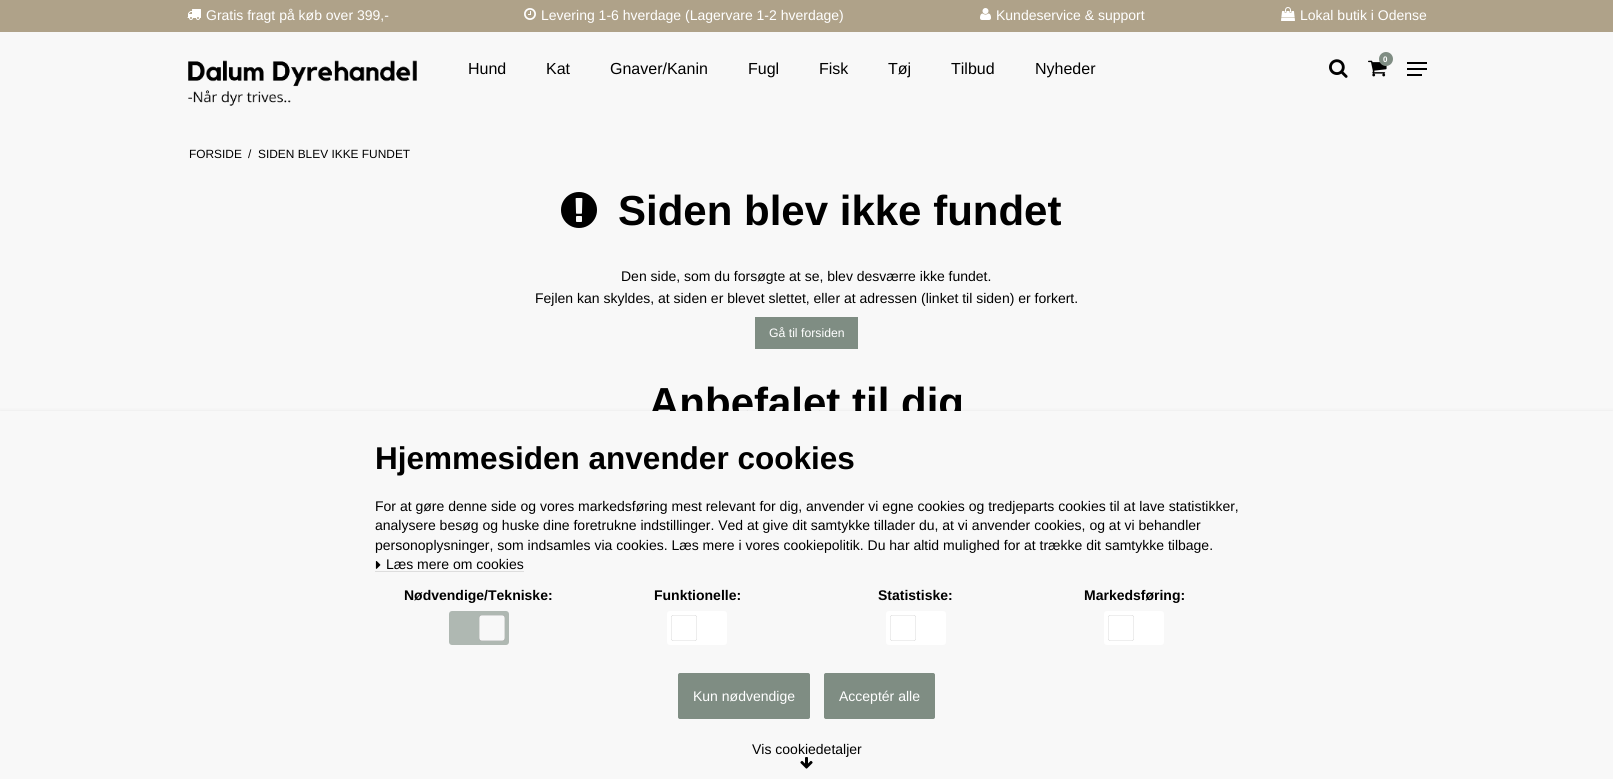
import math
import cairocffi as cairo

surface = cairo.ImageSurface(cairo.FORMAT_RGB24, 1613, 779)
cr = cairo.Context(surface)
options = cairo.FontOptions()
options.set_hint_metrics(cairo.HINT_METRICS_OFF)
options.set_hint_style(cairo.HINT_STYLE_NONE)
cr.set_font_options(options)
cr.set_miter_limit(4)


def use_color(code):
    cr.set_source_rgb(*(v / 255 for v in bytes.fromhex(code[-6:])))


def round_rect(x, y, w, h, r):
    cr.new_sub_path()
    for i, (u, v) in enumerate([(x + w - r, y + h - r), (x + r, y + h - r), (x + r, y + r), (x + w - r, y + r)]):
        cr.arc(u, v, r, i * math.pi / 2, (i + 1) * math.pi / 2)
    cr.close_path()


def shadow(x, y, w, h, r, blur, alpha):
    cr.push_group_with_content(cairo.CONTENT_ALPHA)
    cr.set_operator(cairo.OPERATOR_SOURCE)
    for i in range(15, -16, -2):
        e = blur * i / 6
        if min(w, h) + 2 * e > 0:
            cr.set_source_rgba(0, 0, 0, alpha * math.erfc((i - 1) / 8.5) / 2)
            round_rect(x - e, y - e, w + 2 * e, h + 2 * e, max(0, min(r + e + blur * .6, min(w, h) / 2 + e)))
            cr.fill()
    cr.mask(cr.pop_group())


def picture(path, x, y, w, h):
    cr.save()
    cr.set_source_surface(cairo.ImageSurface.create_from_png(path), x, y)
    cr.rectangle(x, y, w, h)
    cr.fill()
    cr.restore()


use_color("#f8f8f8")
cr.paint()
use_color("#afa289")
cr.rectangle(0, 0, 1613, 32)
cr.fill()
picture("img1.png", 187, 9, 14, 11)
cr.select_font_face("Liberation Sans")
cr.set_font_size(14)
use_color("#ffffff")
cr.move_to(206, 20)
cr.show_text("Gratis fragt på køb over 399,-")
picture("img2.png", 524, 8, 12, 12)
cr.move_to(541, 20)
cr.show_text("Levering 1-6 hverdage (Lagervare 1-2 hverdage)")
picture("img3.png", 980, 8, 11, 12)
cr.move_to(996, 20)
cr.show_text("Kundeservice & support")
picture("img4.png", 1281, 7, 14, 14)
cr.move_to(1300, 20)
cr.show_text("Lokal butik i Odense")
picture("img5.png", 188, 60, 229, 46)
cr.set_font_size(16)
use_color("#000000")
cr.move_to(468, 74)
cr.show_text("Hund")
cr.move_to(546, 74)
cr.show_text("Kat")
cr.move_to(610, 74)
cr.show_text("Gnaver/Kanin")
cr.move_to(748, 74)
cr.show_text("Fugl")
cr.move_to(819, 74)
cr.show_text("Fisk")
cr.move_to(888, 74)
cr.show_text("Tøj")
cr.move_to(951, 74)
cr.show_text("Tilbud")
cr.move_to(1035, 74)
cr.show_text("Nyheder")
picture("img6.png", 1329, 59, 19, 19)
picture("img7.png", 1368, 60, 19, 17)
use_color("#7f8d83")
cr.arc(1386, 59, 7, 0, 2 * math.pi)
cr.fill()
cr.select_font_face("Liberation Sans", cairo.FONT_SLANT_NORMAL, cairo.FONT_WEIGHT_BOLD)
cr.set_font_size(8)
use_color("#ffffff")
cr.move_to(1383, 62)
cr.show_text("0")
use_color("#000000")
cr.rectangle(1407, 62, 20, 2)
cr.fill()
cr.rectangle(1407, 68, 20, 2)
cr.fill()
cr.rectangle(1407, 74, 15, 2)
cr.fill()
cr.select_font_face("Liberation Sans")
cr.set_font_size(11.9)
cr.move_to(189, 158)
cr.show_text("FORSIDE")
cr.move_to(248, 158)
cr.show_text("/")
cr.move_to(258, 158)
cr.show_text("SIDEN BLEV IKKE FUNDET")
picture("img8.png", 561, 192, 36, 36)
cr.select_font_face("Liberation Sans", cairo.FONT_SLANT_NORMAL, cairo.FONT_WEIGHT_BOLD)
cr.set_font_size(42)
cr.move_to(618, 225)
cr.show_text("Siden blev ikke fundet")
cr.select_font_face("Liberation Sans")
cr.set_font_size(14)
cr.move_to(621, 281)
cr.show_text("Den side, som du forsøgte at se, blev desværre ikke fundet.")
cr.move_to(535, 303)
cr.show_text("Fejlen kan skyldes, at siden er blevet slettet, eller at adressen (linket til siden) er forkert.")
use_color("#7f8d83")
cr.rectangle(755, 317, 103, 32)
cr.fill()
cr.set_font_size(12.25)
use_color("#ffffff")
cr.move_to(769, 337)
cr.show_text("Gå til forsiden")
cr.select_font_face("Liberation Sans", cairo.FONT_SLANT_NORMAL, cairo.FONT_WEIGHT_BOLD)
cr.set_font_size(42)
use_color("#000000")
cr.move_to(649, 417)
cr.show_text("Anbefalet til dig")
use_color("#000000")
shadow(0, 414, 1613, 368, 0, 3, 0.23)
use_color("#f8f8f8")
cr.rectangle(0, 411, 1613, 368)
cr.fill()
cr.set_font_size(31.5)
use_color("#000000")
cr.move_to(375, 469)
cr.show_text("Hjemmesiden anvender cookies")
cr.select_font_face("Liberation Sans")
cr.set_font_size(14)
cr.move_to(375, 511)
cr.show_text("For at gøre denne side og vores markedsføring mest relevant for dig, anvender vi egne cookies og tredjeparts cookies til at lave statistikker,")
cr.move_to(375, 530)
cr.show_text("analysere besøg og huske dine foretrukne indstillinger. Ved at give dit samtykke tillader du, at vi anvender cookies, og at vi behandler")
cr.move_to(375, 550)
cr.show_text("personoplysninger, som indsamles via cookies. Læs mere i vores cookiepolitik. Du har altid mulighed for at trække dit samtykke tilbage.")
use_color("#dddddd")
cr.rectangle(375, 571, 149, 1)
cr.fill()
picture("img9.png", 375, 561, 6, 8)
use_color("#000000")
cr.move_to(386, 569)
cr.show_text("Læs mere om cookies")
cr.select_font_face("Liberation Sans", cairo.FONT_SLANT_NORMAL, cairo.FONT_WEIGHT_BOLD)
cr.move_to(404, 600)
cr.show_text("Nødvendige/Tekniske:")
use_color("#afb8b2")
round_rect(449, 611, 60, 34, 3)
cr.fill()
round_rect(479.1, 615.1, 25.8, 25.8, 2.9)
use_color("#848885")
cr.set_line_width(0.2)
cr.stroke()
use_color("#f8f8f8")
round_rect(479.1, 615.1, 25.8, 25.8, 2.9)
cr.fill_preserve()
use_color("#848885")
cr.stroke()
use_color("#000000")
cr.move_to(654, 600)
cr.show_text("Funktionelle:")
use_color("#ffffff")
round_rect(667, 611, 60, 34, 3)
cr.fill()
round_rect(671.1, 615.1, 25.8, 25.8, 2.9)
use_color("#b3b3b3")
cr.stroke()
use_color("#ffffff")
round_rect(671.1, 615.1, 25.8, 25.8, 2.9)
cr.fill_preserve()
use_color("#b3b3b3")
cr.stroke()
use_color("#000000")
cr.move_to(878, 600)
cr.show_text("Statistiske:")
use_color("#ffffff")
round_rect(886, 611, 60, 34, 3)
cr.fill()
round_rect(890.1, 615.1, 25.8, 25.8, 2.9)
use_color("#b3b3b3")
cr.stroke()
use_color("#ffffff")
round_rect(890.1, 615.1, 25.8, 25.8, 2.9)
cr.fill_preserve()
use_color("#b3b3b3")
cr.stroke()
use_color("#000000")
cr.move_to(1084, 600)
cr.show_text("Markedsføring:")
use_color("#ffffff")
round_rect(1104, 611, 60, 34, 3)
cr.fill()
round_rect(1108.1, 615.1, 25.8, 25.8, 2.9)
use_color("#b3b3b3")
cr.stroke()
use_color("#ffffff")
round_rect(1108.1, 615.1, 25.8, 25.8, 2.9)
cr.fill_preserve()
use_color("#b3b3b3")
cr.stroke()
use_color("#7f8d83")
round_rect(678.5, 673.5, 131, 45, 1.5)
cr.fill_preserve()
cr.set_line_width(1)
cr.stroke()
cr.select_font_face("Liberation Sans")
use_color("#ffffff")
cr.move_to(693, 701)
cr.show_text("Kun nødvendige")
use_color("#7f8d83")
round_rect(824.5, 673.5, 110, 45, 1.5)
cr.fill_preserve()
cr.stroke()
use_color("#ffffff")
cr.move_to(839, 701)
cr.show_text("Acceptér alle")
use_color("#000000")
cr.move_to(752, 754)
cr.show_text("Vis cookiedetaljer")
picture("img10.png", 800, 757, 13, 12)
surface.write_to_png("result.png")
